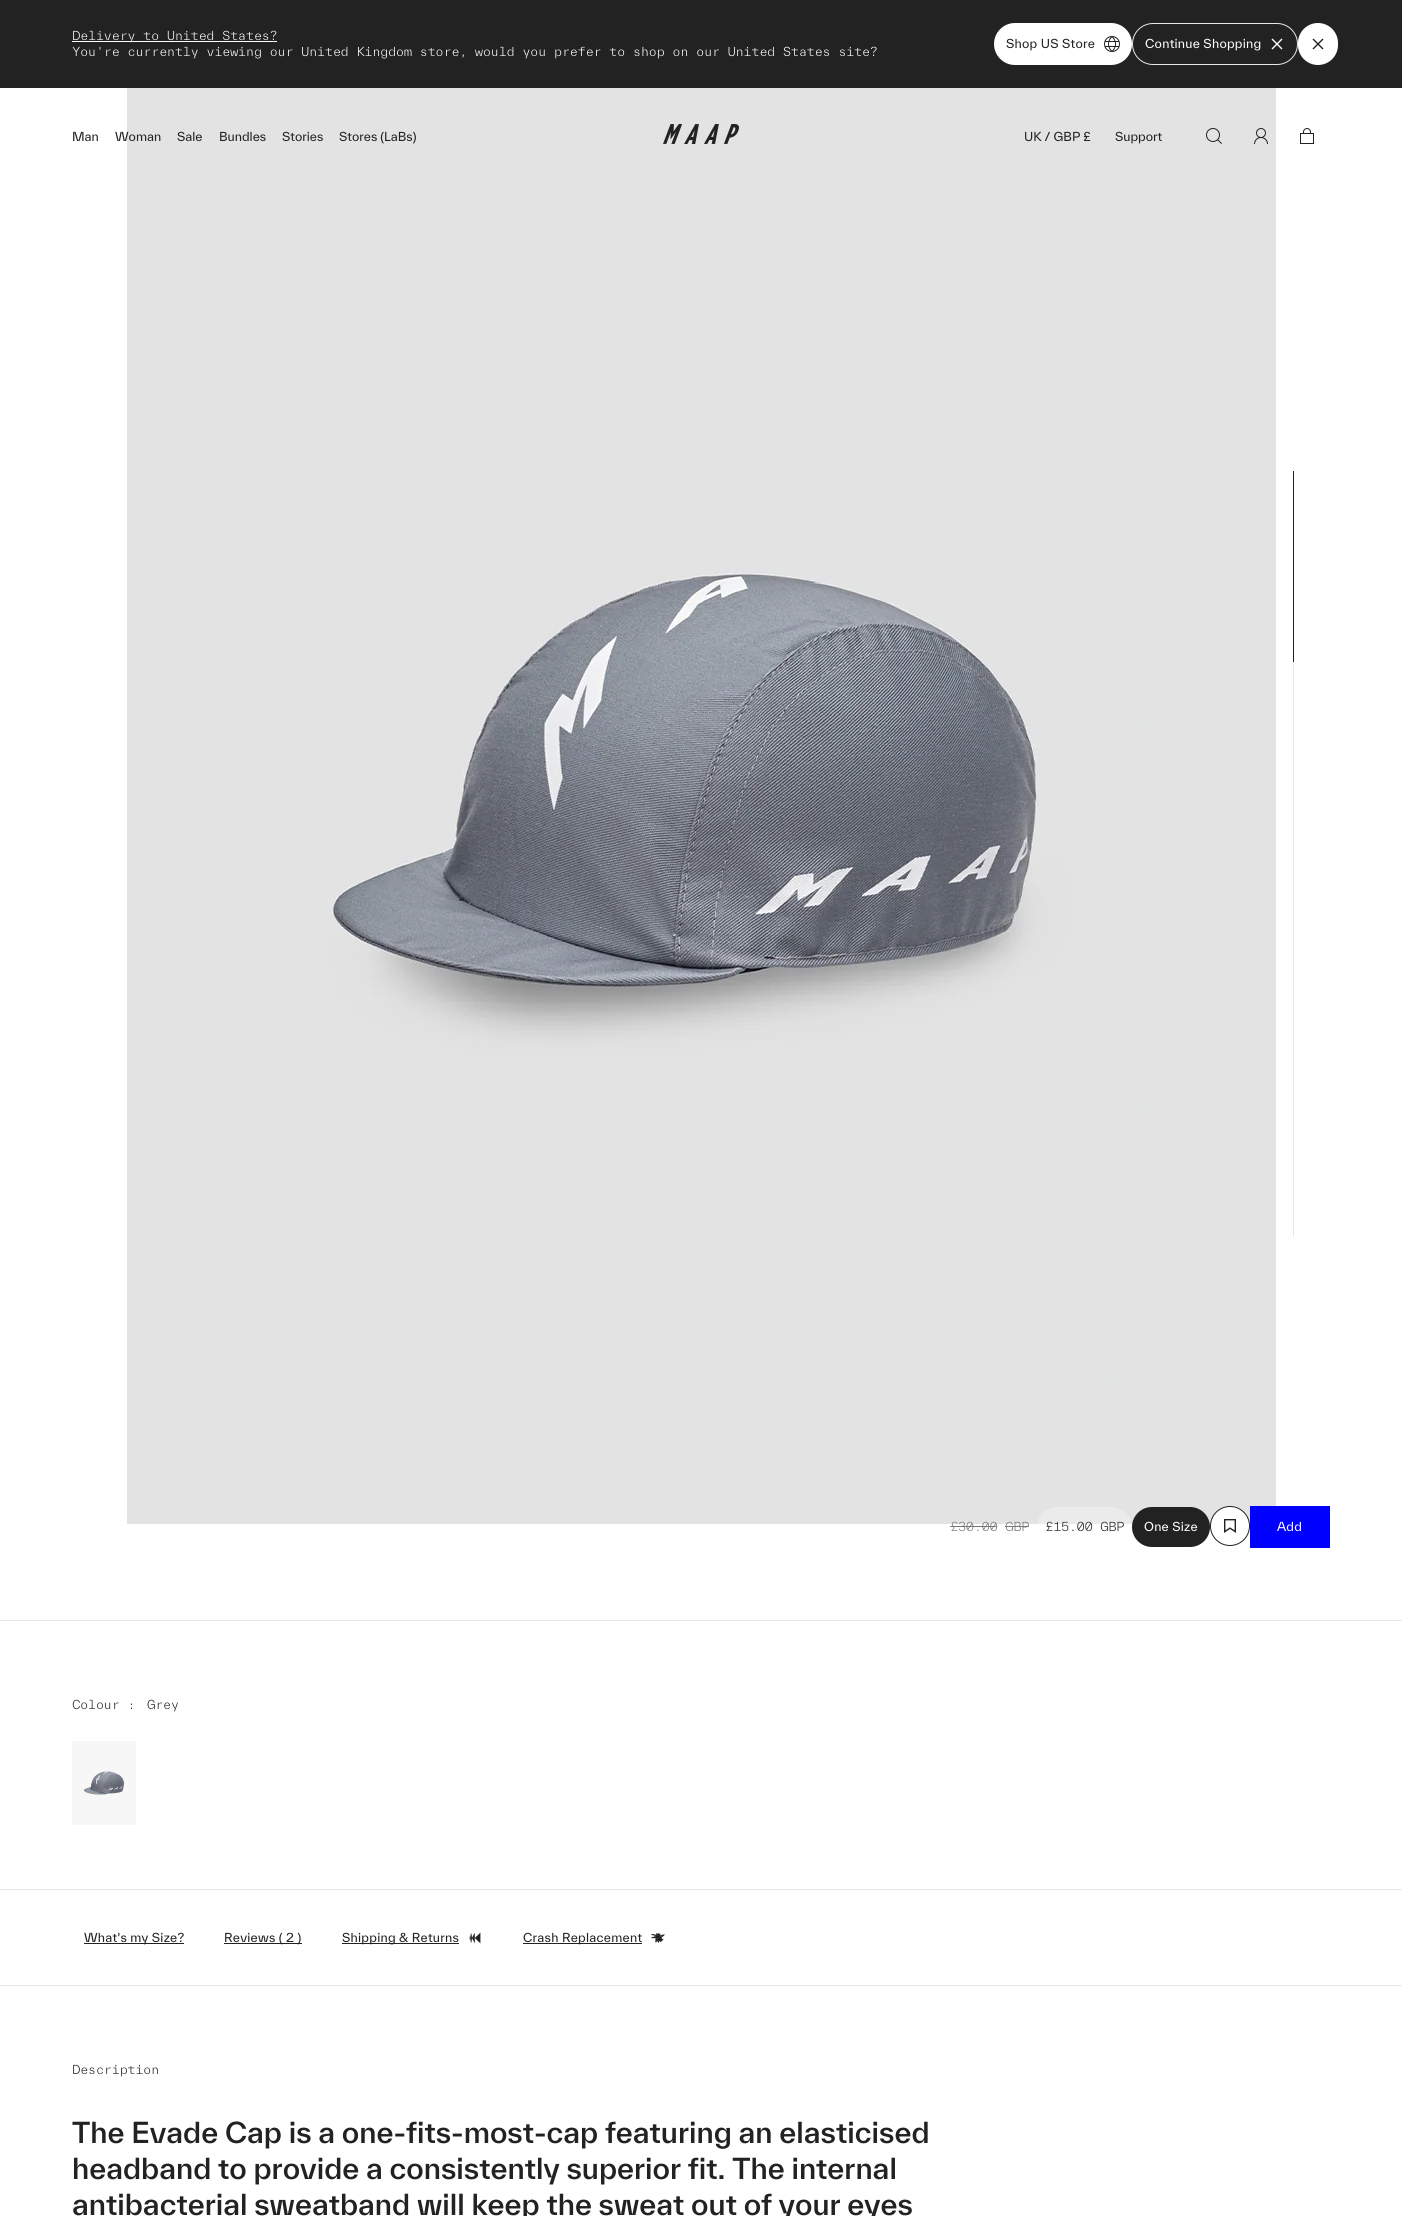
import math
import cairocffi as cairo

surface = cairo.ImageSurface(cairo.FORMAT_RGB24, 1402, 2216)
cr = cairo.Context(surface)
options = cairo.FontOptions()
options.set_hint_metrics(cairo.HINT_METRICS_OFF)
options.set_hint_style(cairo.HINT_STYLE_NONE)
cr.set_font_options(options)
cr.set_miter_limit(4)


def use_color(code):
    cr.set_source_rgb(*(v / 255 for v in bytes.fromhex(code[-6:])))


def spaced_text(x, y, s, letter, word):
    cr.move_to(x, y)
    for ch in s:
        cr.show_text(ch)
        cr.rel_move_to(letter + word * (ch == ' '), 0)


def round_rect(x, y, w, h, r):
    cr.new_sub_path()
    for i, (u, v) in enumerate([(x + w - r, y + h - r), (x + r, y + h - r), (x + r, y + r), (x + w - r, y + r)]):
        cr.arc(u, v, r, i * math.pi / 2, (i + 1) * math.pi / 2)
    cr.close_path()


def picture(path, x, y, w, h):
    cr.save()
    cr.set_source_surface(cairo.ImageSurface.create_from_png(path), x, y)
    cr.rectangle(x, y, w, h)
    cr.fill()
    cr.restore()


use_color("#ffffff")
cr.paint()
use_color("#222222")
cr.rectangle(0, 0, 1402, 88)
cr.fill()
use_color("#ffffff")
cr.rectangle(72, 41, 205, 1)
cr.fill()
cr.select_font_face("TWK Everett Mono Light")
cr.set_font_size(12)
spaced_text(72, 40, "Delivery to United States?", -0.5, 0)
spaced_text(72, 56, "You're currently viewing our United Kingdom store, would you prefer to shop on our United States site?", -0.5, 0)
round_rect(994, 23, 138, 42, 21)
cr.fill()
cr.select_font_face("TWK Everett")
use_color("#222222")
spaced_text(1006, 48, "Shop US Store", 0.25, 0)
picture("img1.png", 1104, 36, 16, 16)
round_rect(1132.5, 23.5, 165, 41, 20.5)
use_color("#e7e7e7")
cr.set_line_width(1)
cr.stroke()
use_color("#ffffff")
spaced_text(1145, 48, "Continue Shopping", 0.25, 0)
picture("img2.png", 1271, 38, 12, 12)
round_rect(1298, 23, 40, 42, 20)
cr.fill()
picture("img3.png", 1312, 38, 12, 12)
use_color("#222222")
cr.move_to(72, 141)
cr.show_text("Man")
picture("img8.png", 127, 88, 1149, 1436)
cr.move_to(115, 141)
cr.show_text("Woman")
cr.move_to(177, 141)
cr.show_text("Sale")
cr.move_to(219, 141)
cr.show_text("Bundles")
cr.move_to(282, 141)
cr.show_text("Stories")
cr.move_to(339, 141)
cr.show_text("Stores (LaBs)")
picture("img4.png", 663, 124, 76, 20)
cr.move_to(1024, 141)
cr.show_text("UK / GBP £")
cr.move_to(1115, 141)
cr.show_text("Support")
picture("img5.png", 1206, 128, 16, 16)
picture("img6.png", 1254, 128, 14, 16)
picture("img7.png", 1300, 128, 14, 16)
use_color("#e7e7e7")
cr.rectangle(1293, 662, 1, 575)
cr.fill()
use_color("#222222")
cr.rectangle(1293, 471, 1, 191)
cr.fill()
cr.select_font_face("TWK Everett Mono Light")
use_color("#777777")
spaced_text(950, 1531, "£30.00 GBP", -0.5, 0)
cr.rectangle(950, 1526, 47, 1)
cr.fill()
cr.rectangle(1005, 1526, 24, 1)
cr.fill()
cr.set_source_rgba(1, 1, 1, 0.3)
round_rect(1037, 1507, 95, 40, 20)
cr.fill()
use_color("#222222")
spaced_text(1045, 1531, "£15.00 GBP", -0.5, 0)
round_rect(1132, 1507, 78, 40, 20)
cr.fill()
cr.select_font_face("TWK Everett")
use_color("#ffffff")
spaced_text(1144, 1531, "One Size", 0.25, 0)
picture("img9.png", 1210, 1506, 40, 40)
use_color("#0000ff")
cr.rectangle(1250, 1506, 80, 42)
cr.fill()
use_color("#ffffff")
spaced_text(1277, 1531, "Add", 0.25, 0)
use_color("#e7e7e7")
cr.rectangle(0, 1620, 1402, 1)
cr.fill()
cr.select_font_face("TWK Everett Mono Light")
use_color("#222222")
spaced_text(72, 1709, "Colour :", -0.5, 0)
spaced_text(147, 1709, "Grey", -0.5, 0)
use_color("#f7f7f7")
cr.rectangle(72, 1741, 64, 84)
cr.fill()
picture("img10.png", 84, 1771, 41, 24)
use_color("#e7e7e7")
cr.rectangle(0, 1889, 1402, 1)
cr.fill()
use_color("#222222")
cr.rectangle(84, 1943, 100, 1)
cr.fill()
cr.select_font_face("TWK Everett")
spaced_text(84, 1942, "What's my Size?", 0.25, 0)
cr.rectangle(224, 1943, 78, 1)
cr.fill()
spaced_text(224, 1942, "Reviews ( 2 )", 0.25, 0)
cr.rectangle(342, 1943, 117, 1)
cr.fill()
spaced_text(342, 1942, "Shipping & Returns", 0.25, 0)
picture("img11.png", 469, 1932, 12, 12)
cr.rectangle(523, 1943, 119, 1)
cr.fill()
spaced_text(523, 1942, "Crash Replacement", 0.25, 0)
picture("img12.png", 651, 1933, 14, 10)
use_color("#e7e7e7")
cr.rectangle(0, 1985, 1402, 1)
cr.fill()
cr.select_font_face("TWK Everett Mono Light")
use_color("#222222")
spaced_text(72, 2074, "Description", -0.5, 0)
cr.select_font_face("TWK Everett Medium")
cr.set_font_size(28)
cr.move_to(72, 2143)
cr.show_text("The Evade Cap is a one-fits-most-cap featuring an elasticised")
cr.move_to(72, 2179)
cr.show_text("headband to provide a consistently superior fit. The internal")
cr.move_to(72, 2215)
cr.show_text("antibacterial sweatband will keep the sweat out of your eyes")
surface.write_to_png("result.png")
